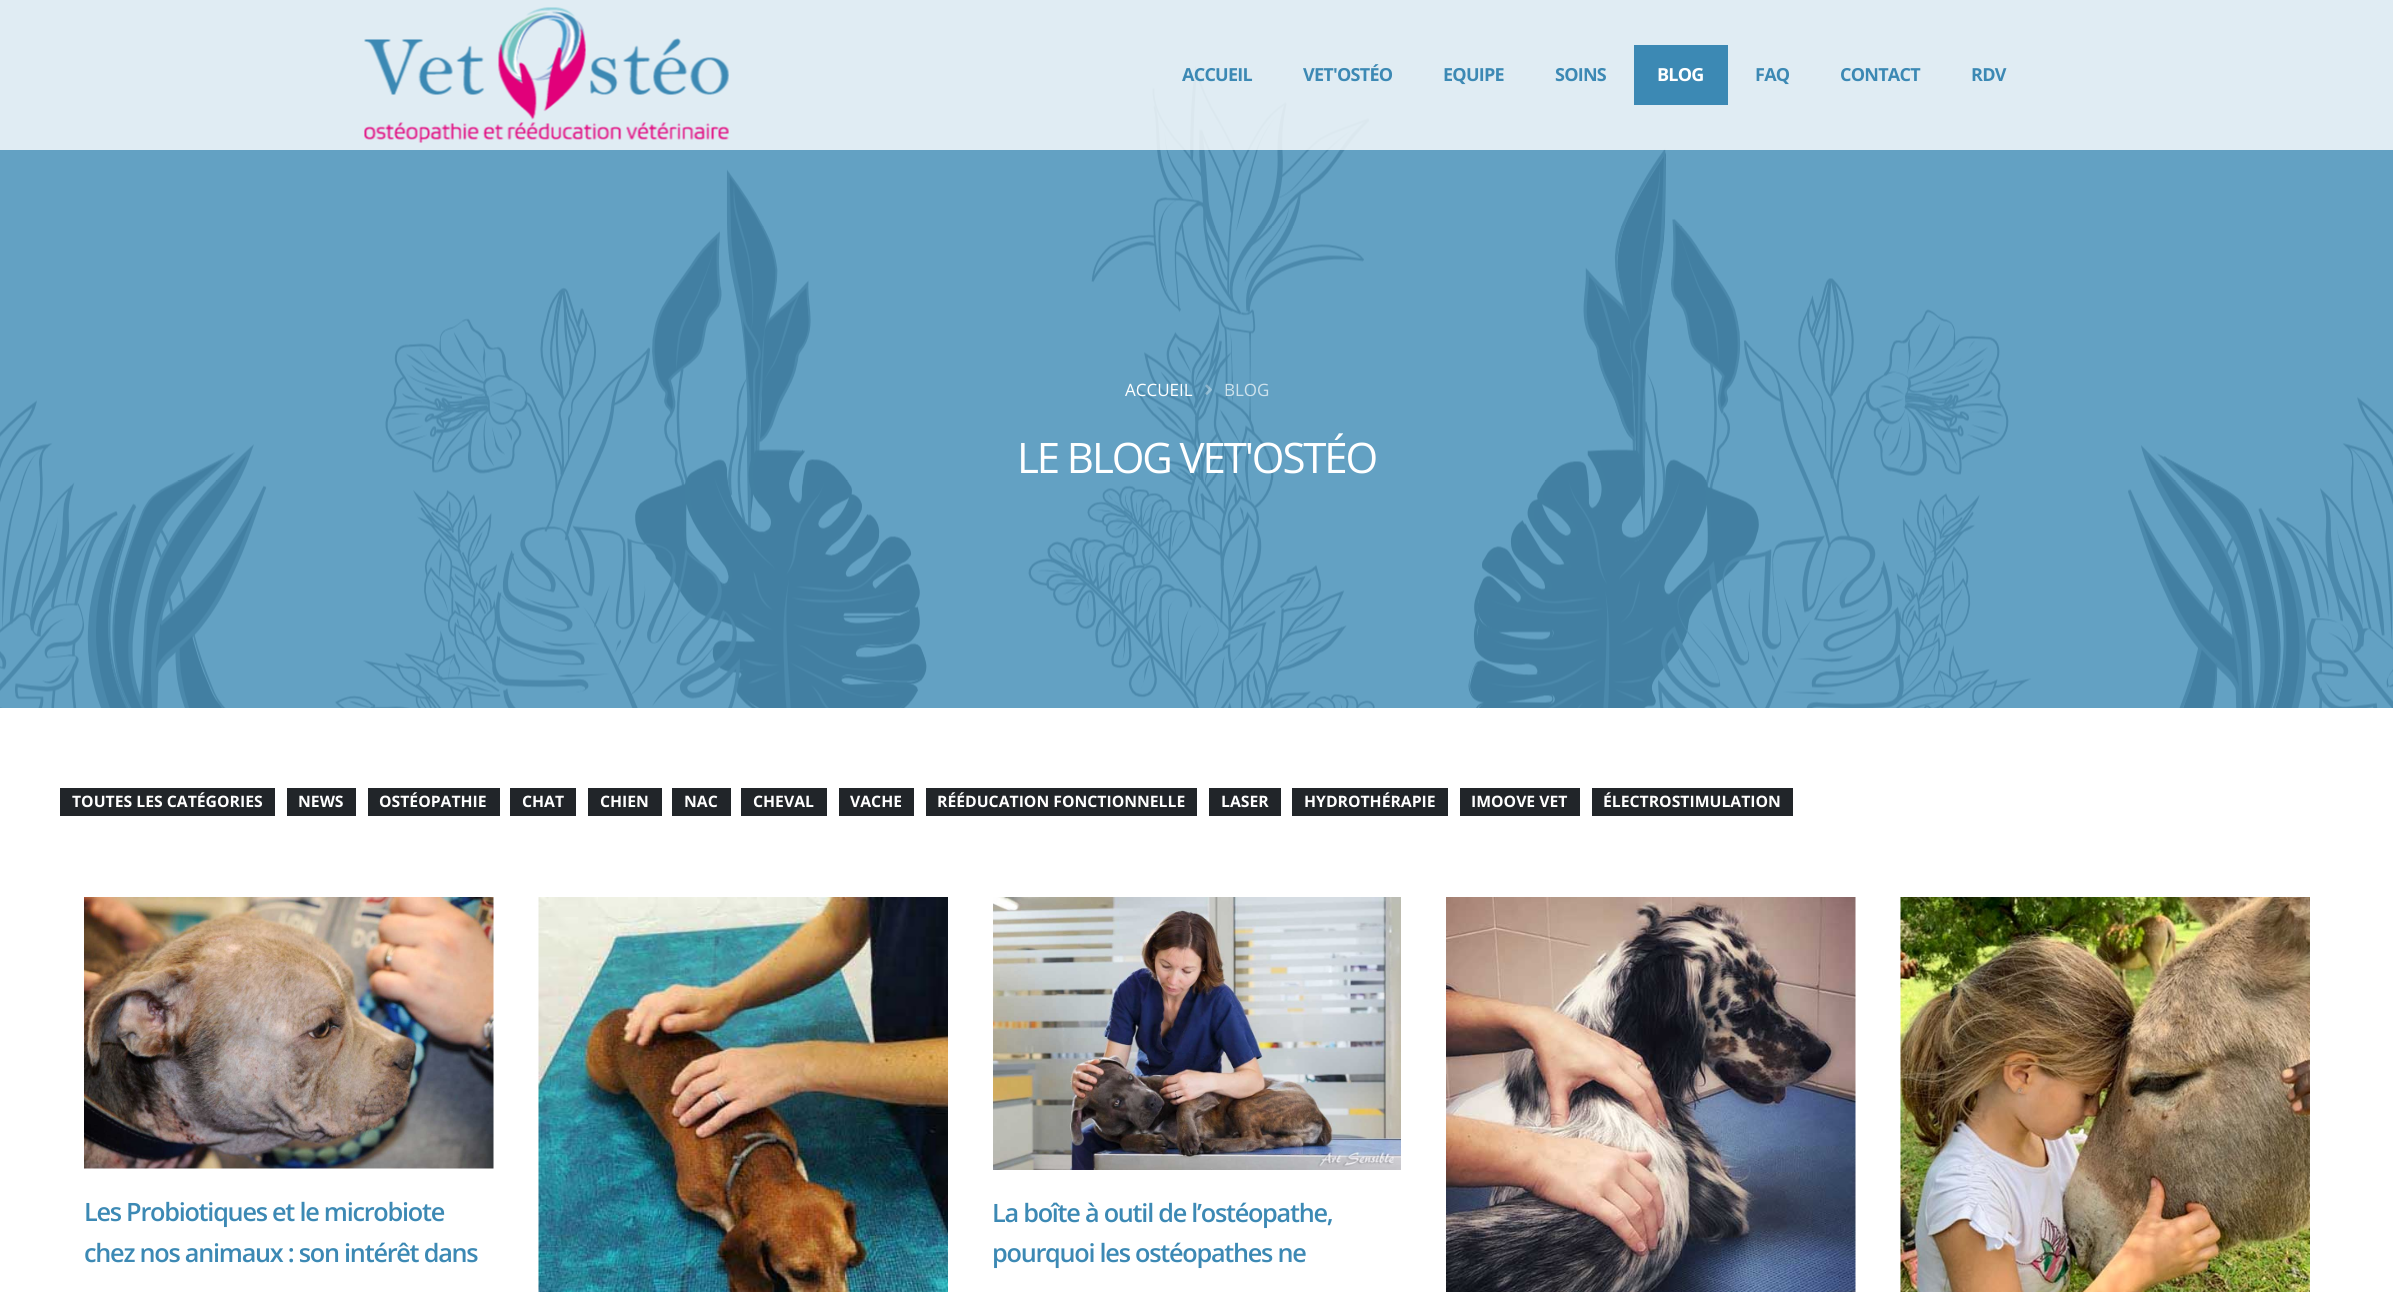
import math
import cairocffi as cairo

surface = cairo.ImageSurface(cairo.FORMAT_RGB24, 2393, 1292)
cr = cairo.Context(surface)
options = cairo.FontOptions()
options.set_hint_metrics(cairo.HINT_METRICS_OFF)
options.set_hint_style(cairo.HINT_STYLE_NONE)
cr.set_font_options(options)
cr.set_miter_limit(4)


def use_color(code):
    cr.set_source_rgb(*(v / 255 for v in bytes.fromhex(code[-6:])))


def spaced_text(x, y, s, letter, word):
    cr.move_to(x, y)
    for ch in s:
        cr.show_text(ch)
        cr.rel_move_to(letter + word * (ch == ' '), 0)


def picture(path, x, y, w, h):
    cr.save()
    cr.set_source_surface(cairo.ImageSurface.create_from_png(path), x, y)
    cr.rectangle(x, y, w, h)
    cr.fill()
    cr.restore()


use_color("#ffffff")
cr.paint()
use_color("#63a1c3")
cr.rectangle(0, 0, 2393, 708)
cr.fill()
picture("img2.png", 0, 65, 2393, 643)
cr.set_source_rgba(1, 1, 1, 0.8)
cr.rectangle(0, 0, 2393, 150)
cr.fill()
picture("img1.png", 364, 7, 365, 136)
cr.select_font_face("Open Sans", cairo.FONT_SLANT_NORMAL, cairo.FONT_WEIGHT_BOLD)
cr.set_font_size(18)
use_color("#3c89b4")
spaced_text(1182, 81, "ACCUEIL", -0.75, 0)
spaced_text(1303, 81, "VET'OSTÉO", -0.75, 0)
spaced_text(1443, 81, "EQUIPE", -0.75, 0)
spaced_text(1555, 81, "SOINS", -0.75, 0)
cr.rectangle(1634, 45, 94, 60)
cr.fill()
use_color("#ffffff")
spaced_text(1657, 81, "BLOG", -0.75, 0)
use_color("#3c89b4")
spaced_text(1755, 81, "FAQ", -0.75, 0)
spaced_text(1840, 81, "CONTACT", -0.75, 0)
spaced_text(1971, 81, "RDV", -0.75, 0)
cr.select_font_face("Open Sans")
cr.set_font_size(17)
use_color("#ffffff")
cr.move_to(1125, 396)
cr.show_text("ACCUEIL")
picture("img3.png", 1205, 384, 7, 11)
use_color("#cfe2ec")
cr.move_to(1224, 396)
cr.show_text("BLOG")
cr.set_font_size(42)
use_color("#ffffff")
spaced_text(1017, 473, "LE BLOG VET'OSTÉO", -2.1, 0)
use_color("#212529")
cr.rectangle(60, 788, 215, 28)
cr.fill()
cr.select_font_face("Open Sans", cairo.FONT_SLANT_NORMAL, cairo.FONT_WEIGHT_BOLD)
cr.set_font_size(15.75)
use_color("#ffffff")
cr.move_to(72, 807)
cr.show_text("TOUTES LES CATÉGORIES")
use_color("#212529")
cr.rectangle(287, 788, 69, 28)
cr.fill()
use_color("#ffffff")
cr.move_to(298, 807)
cr.show_text("NEWS")
use_color("#212529")
cr.rectangle(368, 788, 132, 28)
cr.fill()
use_color("#ffffff")
cr.move_to(379, 807)
cr.show_text("OSTÉOPATHIE")
use_color("#212529")
cr.rectangle(510, 788, 66, 28)
cr.fill()
use_color("#ffffff")
cr.move_to(522, 807)
cr.show_text("CHAT")
use_color("#212529")
cr.rectangle(588, 788, 74, 28)
cr.fill()
use_color("#ffffff")
cr.move_to(600, 807)
cr.show_text("CHIEN")
use_color("#212529")
cr.rectangle(672, 788, 59, 28)
cr.fill()
use_color("#ffffff")
cr.move_to(684, 807)
cr.show_text("NAC")
use_color("#212529")
cr.rectangle(741, 788, 86, 28)
cr.fill()
use_color("#ffffff")
cr.move_to(753, 807)
cr.show_text("CHEVAL")
use_color("#212529")
cr.rectangle(839, 788, 75, 28)
cr.fill()
use_color("#ffffff")
cr.move_to(850, 807)
cr.show_text("VACHE")
use_color("#212529")
cr.rectangle(926, 788, 271, 28)
cr.fill()
use_color("#ffffff")
cr.move_to(937, 807)
cr.show_text("RÉÉDUCATION FONCTIONNELLE")
use_color("#212529")
cr.rectangle(1209, 788, 72, 28)
cr.fill()
use_color("#ffffff")
cr.move_to(1221, 807)
cr.show_text("LASER")
use_color("#212529")
cr.rectangle(1292, 788, 156, 28)
cr.fill()
use_color("#ffffff")
cr.move_to(1304, 807)
cr.show_text("HYDROTHÉRAPIE")
use_color("#212529")
cr.rectangle(1460, 788, 120, 28)
cr.fill()
use_color("#ffffff")
cr.move_to(1471, 807)
cr.show_text("IMOOVE VET")
use_color("#212529")
cr.rectangle(1592, 788, 201, 28)
cr.fill()
use_color("#ffffff")
cr.move_to(1603, 807)
cr.show_text("ÉLECTROSTIMULATION")
picture("img4.png", 84, 897, 410, 272)
cr.select_font_face("Open Sans SemiBold")
cr.set_font_size(25.25)
use_color("#3c89b4")
spaced_text(84, 1221, "Les Probiotiques et le microbiote", -1.25, 0)
spaced_text(84, 1262, "chez nos animaux : son intérêt dans", -1.25, 0)
picture("img5.png", 538, 897, 410, 395)
picture("img6.png", 993, 897, 408, 273)
spaced_text(992, 1222, "La boîte à outil de l’ostéopathe,", -1.25, 0)
spaced_text(992, 1262, "pourquoi les ostéopathes ne", -1.25, 0)
picture("img7.png", 1446, 897, 410, 395)
picture("img8.png", 1900, 897, 410, 395)
surface.write_to_png("result.png")
